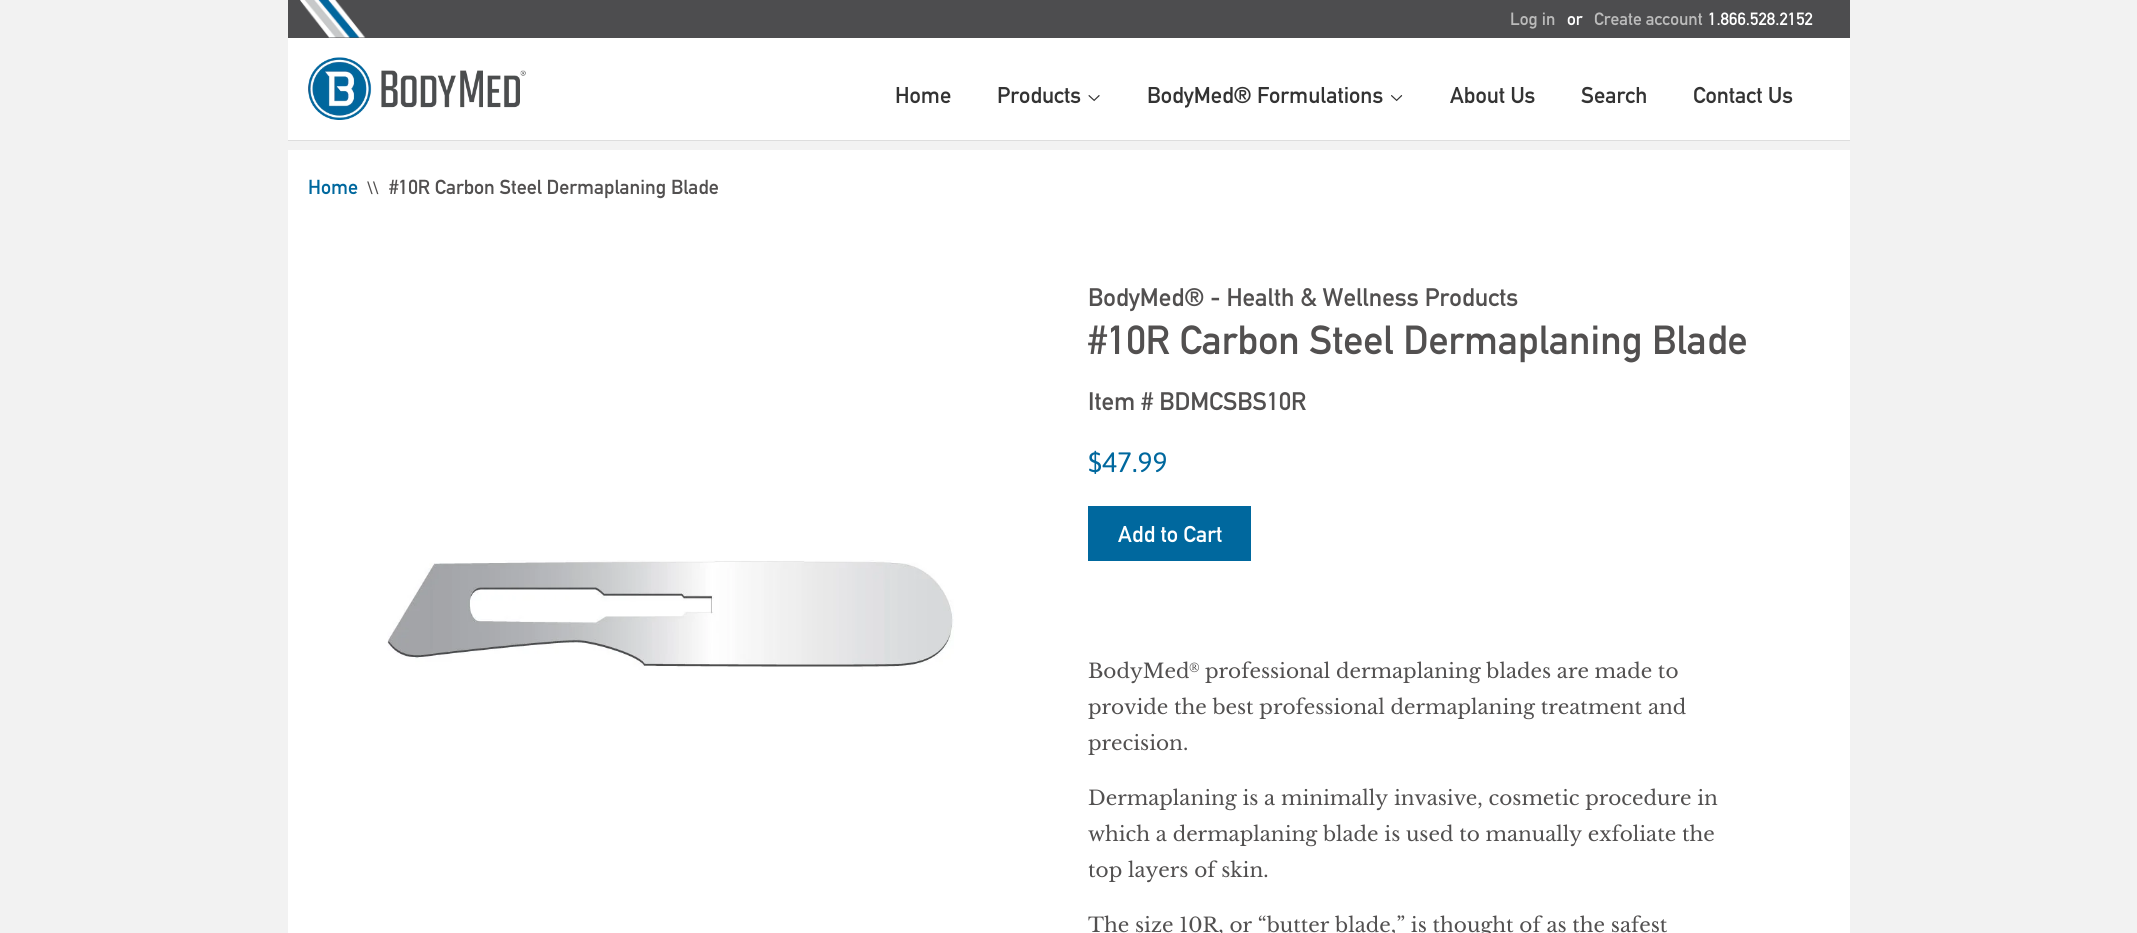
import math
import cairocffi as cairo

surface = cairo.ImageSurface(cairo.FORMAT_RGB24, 2137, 933)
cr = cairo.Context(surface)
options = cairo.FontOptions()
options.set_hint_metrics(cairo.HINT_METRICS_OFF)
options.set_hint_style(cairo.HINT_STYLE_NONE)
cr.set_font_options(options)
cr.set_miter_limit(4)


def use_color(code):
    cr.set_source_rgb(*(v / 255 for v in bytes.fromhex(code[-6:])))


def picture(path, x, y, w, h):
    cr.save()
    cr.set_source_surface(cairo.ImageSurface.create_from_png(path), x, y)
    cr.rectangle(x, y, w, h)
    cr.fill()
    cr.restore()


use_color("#f2f2f2")
cr.paint()
use_color("#ffffff")
cr.rectangle(288, 38, 1562, 102)
cr.fill()
use_color("#4d4d4f")
cr.rectangle(288, 0, 1562, 38)
cr.fill()
picture("img1.png", 300, 0, 66, 38)
cr.select_font_face("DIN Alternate", cairo.FONT_SLANT_NORMAL, cairo.FONT_WEIGHT_BOLD)
cr.set_font_size(17.5)
use_color("#bbbbbb")
cr.move_to(1510, 25)
cr.show_text("Log in")
use_color("#ffffff")
cr.move_to(1567, 25)
cr.show_text("or")
use_color("#bbbbbb")
cr.move_to(1594, 25)
cr.show_text("Create account")
use_color("#ffffff")
cr.move_to(1708, 25)
cr.show_text("1.866.528.2152")
use_color("#dddddd")
cr.rectangle(288, 140, 1562, 1)
cr.fill()
picture("img2.png", 308, 57, 218, 63)
cr.set_font_size(22.5)
use_color("#333333")
cr.move_to(895, 103)
cr.show_text("Home")
cr.move_to(997, 103)
cr.show_text("Products")
picture("img3.png", 1088, 95, 12, 7)
cr.move_to(1147, 103)
cr.show_text("BodyMed® Formulations")
picture("img4.png", 1391, 95, 12, 7)
cr.move_to(1450, 103)
cr.show_text("About Us")
cr.move_to(1581, 103)
cr.show_text("Search")
cr.move_to(1693, 103)
cr.show_text("Contact Us")
use_color("#ffffff")
cr.rectangle(288, 150, 1562, 783)
cr.fill()
cr.set_font_size(20)
use_color("#00689e")
cr.move_to(308, 194)
cr.show_text("Home")
cr.set_font_size(17.5)
use_color("#525050")
cr.move_to(367, 194)
cr.show_text("\\\\")
cr.set_font_size(20)
cr.move_to(389, 194)
cr.show_text("#10R Carbon Steel Dermaplaning Blade")
picture("img5.png", 387, 560, 567, 110)
cr.set_font_size(25)
cr.move_to(1088, 306)
cr.show_text("BodyMed® - Health & Wellness Products")
cr.set_font_size(40)
cr.move_to(1088, 354)
cr.show_text("#10R Carbon Steel Dermaplaning Blade")
cr.set_font_size(25)
cr.move_to(1088, 410)
cr.show_text("Item # BDMCSBS10R")
cr.select_font_face("Asap")
cr.set_font_size(28)
use_color("#00689e")
cr.move_to(1088, 472)
cr.show_text("$47.99")
cr.rectangle(1088, 506, 163, 55)
cr.fill()
cr.select_font_face("DIN Alternate", cairo.FONT_SLANT_NORMAL, cairo.FONT_WEIGHT_BOLD)
cr.set_font_size(22.5)
use_color("#ffffff")
cr.move_to(1118, 542)
cr.show_text("Add to Cart")
cr.select_font_face("Libre Baskerville")
cr.set_font_size(20)
use_color("#525050")
cr.move_to(1088, 678)
cr.show_text("BodyMed")
cr.set_font_size(12)
cr.move_to(1189, 672)
cr.show_text("®")
cr.set_font_size(20)
cr.move_to(1205, 678)
cr.show_text("professional dermaplaning blades are made to")
cr.move_to(1088, 714)
cr.show_text("provide the best professional dermaplaning treatment and")
cr.move_to(1088, 750)
cr.show_text("precision.")
cr.move_to(1088, 805)
cr.show_text("Dermaplaning is a minimally invasive, cosmetic procedure in")
cr.move_to(1088, 841)
cr.show_text("which a dermaplaning blade is used to manually exfoliate the")
cr.move_to(1088, 877)
cr.show_text("top layers of skin.")
cr.move_to(1088, 932)
cr.show_text("The size 10R, or “butter blade,” is thought of as the safest")
surface.write_to_png("result.png")
